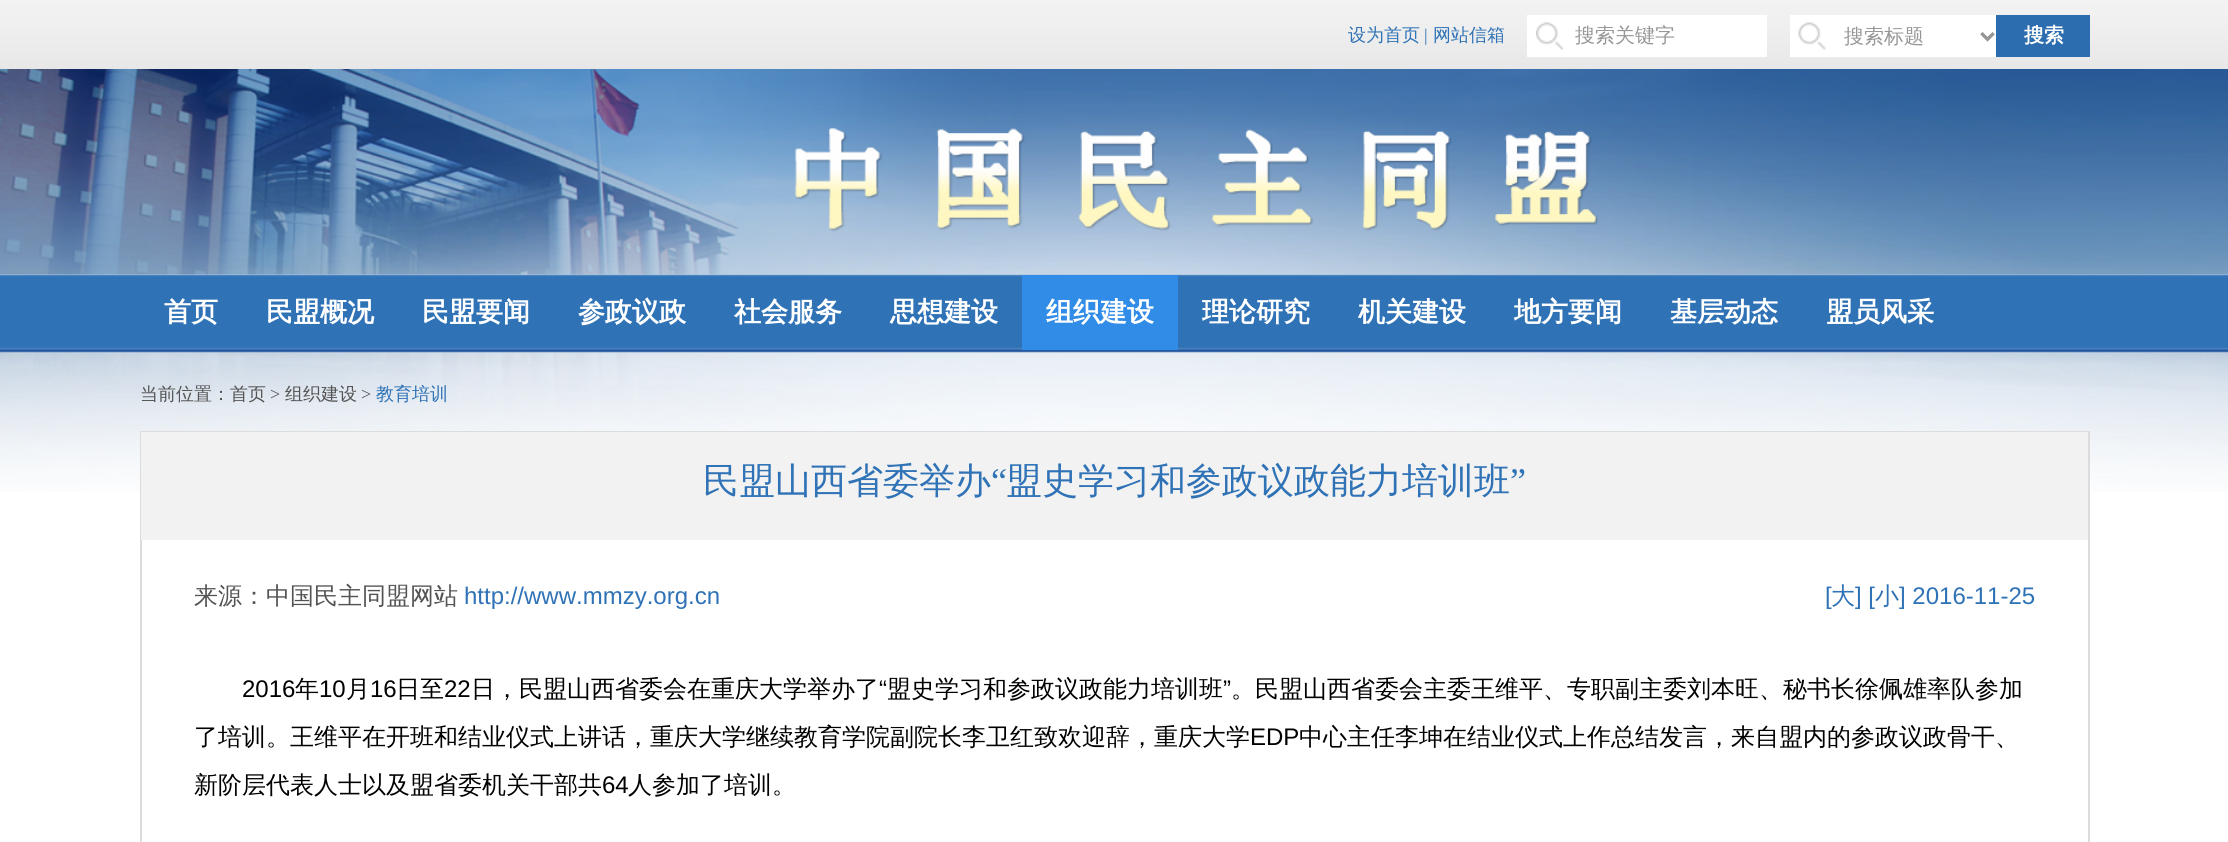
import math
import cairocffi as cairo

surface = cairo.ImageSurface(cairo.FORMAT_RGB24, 2228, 842)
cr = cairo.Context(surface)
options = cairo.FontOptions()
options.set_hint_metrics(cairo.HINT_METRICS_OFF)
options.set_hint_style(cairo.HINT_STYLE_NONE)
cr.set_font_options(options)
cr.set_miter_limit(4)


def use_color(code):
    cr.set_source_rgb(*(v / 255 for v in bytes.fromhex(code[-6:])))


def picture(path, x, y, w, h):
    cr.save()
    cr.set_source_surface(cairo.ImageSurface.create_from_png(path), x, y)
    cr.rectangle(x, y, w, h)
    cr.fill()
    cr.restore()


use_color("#ffffff")
cr.paint()
picture("img1.png", 0, 0, 2228, 69)
cr.select_font_face("WenQuanYi Zen Hei Medium")
cr.set_font_size(18)
use_color("#2f72b6")
cr.move_to(1348, 41)
cr.show_text("设为首页")
cr.select_font_face("Liberation Serif")
cr.move_to(1424, 41)
cr.show_text("|")
cr.select_font_face("WenQuanYi Zen Hei Medium")
cr.move_to(1433, 41)
cr.show_text("网站信箱")
use_color("#ffffff")
cr.rectangle(1527, 15, 240, 42)
cr.fill()
picture("img2.png", 1536, 22, 27, 28)
cr.set_font_size(20)
use_color("#969696")
cr.move_to(1575, 42)
cr.show_text("搜索关键字")
use_color("#ffffff")
cr.rectangle(1790, 15, 206, 42)
cr.fill()
picture("img3.png", 1798, 22, 197, 28)
cr.new_path()
cr.move_to(1981.5, 33.5)
cr.line_to(1987.5, 39.5)
cr.line_to(1993.5, 33.5)
use_color("#969696")
cr.set_line_width(3)
cr.stroke()
cr.move_to(1844, 43)
cr.show_text("搜索标题")
use_color("#2c6daf")
cr.rectangle(1996, 15, 94, 42)
cr.fill()
cr.select_font_face("WenQuanYi Zen Hei", cairo.FONT_SLANT_NORMAL, cairo.FONT_WEIGHT_BOLD)
use_color("#ffffff")
cr.move_to(2024, 42)
cr.show_text("搜索")
picture("img5.png", 0, 274, 2228, 79)
picture("img4.png", 0, 69, 2228, 206)
cr.set_font_size(27)
cr.move_to(164, 321)
cr.show_text("首页")
cr.move_to(266, 321)
cr.show_text("民盟概况")
cr.move_to(422, 321)
cr.show_text("民盟要闻")
cr.move_to(578, 321)
cr.show_text("参政议政")
cr.move_to(734, 321)
cr.show_text("社会服务")
cr.move_to(890, 321)
cr.show_text("思想建设")
use_color("#318ce8")
cr.rectangle(1022, 275, 156, 75)
cr.fill()
use_color("#ffffff")
cr.move_to(1046, 321)
cr.show_text("组织建设")
cr.move_to(1202, 321)
cr.show_text("理论研究")
cr.move_to(1358, 321)
cr.show_text("机关建设")
cr.move_to(1514, 321)
cr.show_text("地方要闻")
cr.move_to(1670, 321)
cr.show_text("基层动态")
cr.move_to(1826, 321)
cr.show_text("盟员风采")
picture("img6.png", 0, 352, 2228, 140)
cr.select_font_face("WenQuanYi Zen Hei Medium")
cr.set_font_size(18)
use_color("#2f72b6")
cr.move_to(376, 400)
cr.show_text("教育培训")
cr.rectangle(141, 432, 1948, 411)
use_color("#dcdcdc")
cr.set_line_width(2)
cr.stroke()
use_color("#f2f2f2")
cr.rectangle(141, 432, 1947, 108)
cr.fill()
cr.set_font_size(36)
use_color("#2f72b6")
cr.move_to(703, 493)
cr.show_text("民盟山西省委举办")
cr.select_font_face("Liberation Serif")
cr.move_to(991, 493)
cr.show_text("“")
cr.select_font_face("WenQuanYi Zen Hei Medium")
cr.move_to(1006, 493)
cr.show_text("盟史学习和参政议政能力培训班")
cr.select_font_face("Liberation Serif")
cr.move_to(1510, 493)
cr.show_text("”")
cr.select_font_face("WenQuanYi Zen Hei Medium")
cr.set_font_size(24)
use_color("#535353")
cr.move_to(194, 604)
cr.show_text("来源：中国民主同盟网站")
cr.select_font_face("Liberation Sans")
use_color("#2f72b6")
cr.move_to(464, 604)
cr.show_text("http://www.mmzy.org.cn")
cr.move_to(1825, 604)
cr.show_text("[")
cr.select_font_face("WenQuanYi Zen Hei Medium")
cr.move_to(1831, 604)
cr.show_text("大")
cr.select_font_face("Liberation Sans")
cr.move_to(1855, 604)
cr.show_text("] [")
cr.select_font_face("WenQuanYi Zen Hei Medium")
cr.move_to(1875, 604)
cr.show_text("小")
cr.select_font_face("Liberation Sans")
cr.move_to(1899, 604)
cr.show_text("] 2016-11-25")
use_color("#000000")
cr.move_to(242, 697)
cr.show_text("2016")
cr.select_font_face("WenQuanYi Zen Hei Medium")
cr.move_to(295, 697)
cr.show_text("年")
cr.select_font_face("Liberation Sans")
cr.move_to(319, 697)
cr.show_text("10")
cr.select_font_face("WenQuanYi Zen Hei Medium")
cr.move_to(346, 697)
cr.show_text("月")
cr.select_font_face("Liberation Sans")
cr.move_to(370, 697)
cr.show_text("16")
cr.select_font_face("WenQuanYi Zen Hei Medium")
cr.move_to(396, 697)
cr.show_text("日至")
cr.select_font_face("Liberation Sans")
cr.move_to(444, 697)
cr.show_text("22")
cr.select_font_face("WenQuanYi Zen Hei Medium")
cr.move_to(471, 697)
cr.show_text("日，民盟山西省委会在重庆大学举办了")
cr.select_font_face("Liberation Sans")
cr.move_to(879, 697)
cr.show_text("“")
cr.select_font_face("WenQuanYi Zen Hei Medium")
cr.move_to(887, 697)
cr.show_text("盟史学习和参政议政能力培训班")
cr.select_font_face("Liberation Sans")
cr.move_to(1223, 697)
cr.show_text("”")
cr.select_font_face("WenQuanYi Zen Hei Medium")
cr.move_to(1231, 697)
cr.show_text("。民盟山西省委会主委王维平、专职副主委刘本旺、秘书长徐佩雄率队参加")
cr.move_to(194, 745)
cr.show_text("了培训。王维平在开班和结业仪式上讲话，重庆大学继续教育学院副院长李卫红致欢迎辞，重庆大学")
cr.select_font_face("Liberation Sans")
cr.move_to(1250, 745)
cr.show_text("EDP")
cr.select_font_face("WenQuanYi Zen Hei Medium")
cr.move_to(1299, 745)
cr.show_text("中心主任李坤在结业仪式上作总结发言，来自盟内的参政议政骨干、")
cr.move_to(194, 793)
cr.show_text("新阶层代表人士以及盟省委机关干部共")
cr.select_font_face("Liberation Sans")
cr.move_to(602, 793)
cr.show_text("64")
cr.select_font_face("WenQuanYi Zen Hei Medium")
cr.move_to(628, 793)
cr.show_text("人参加了培训。")
cr.set_font_size(18)
use_color("#535353")
cr.move_to(140, 400)
cr.show_text("当前位置：首页")
cr.select_font_face("Liberation Serif")
cr.move_to(270, 400)
cr.show_text(">")
cr.select_font_face("WenQuanYi Zen Hei Medium")
cr.move_to(285, 400)
cr.show_text("组织建设")
cr.select_font_face("Liberation Serif")
cr.move_to(361, 400)
cr.show_text(">")
surface.write_to_png("result.png")
